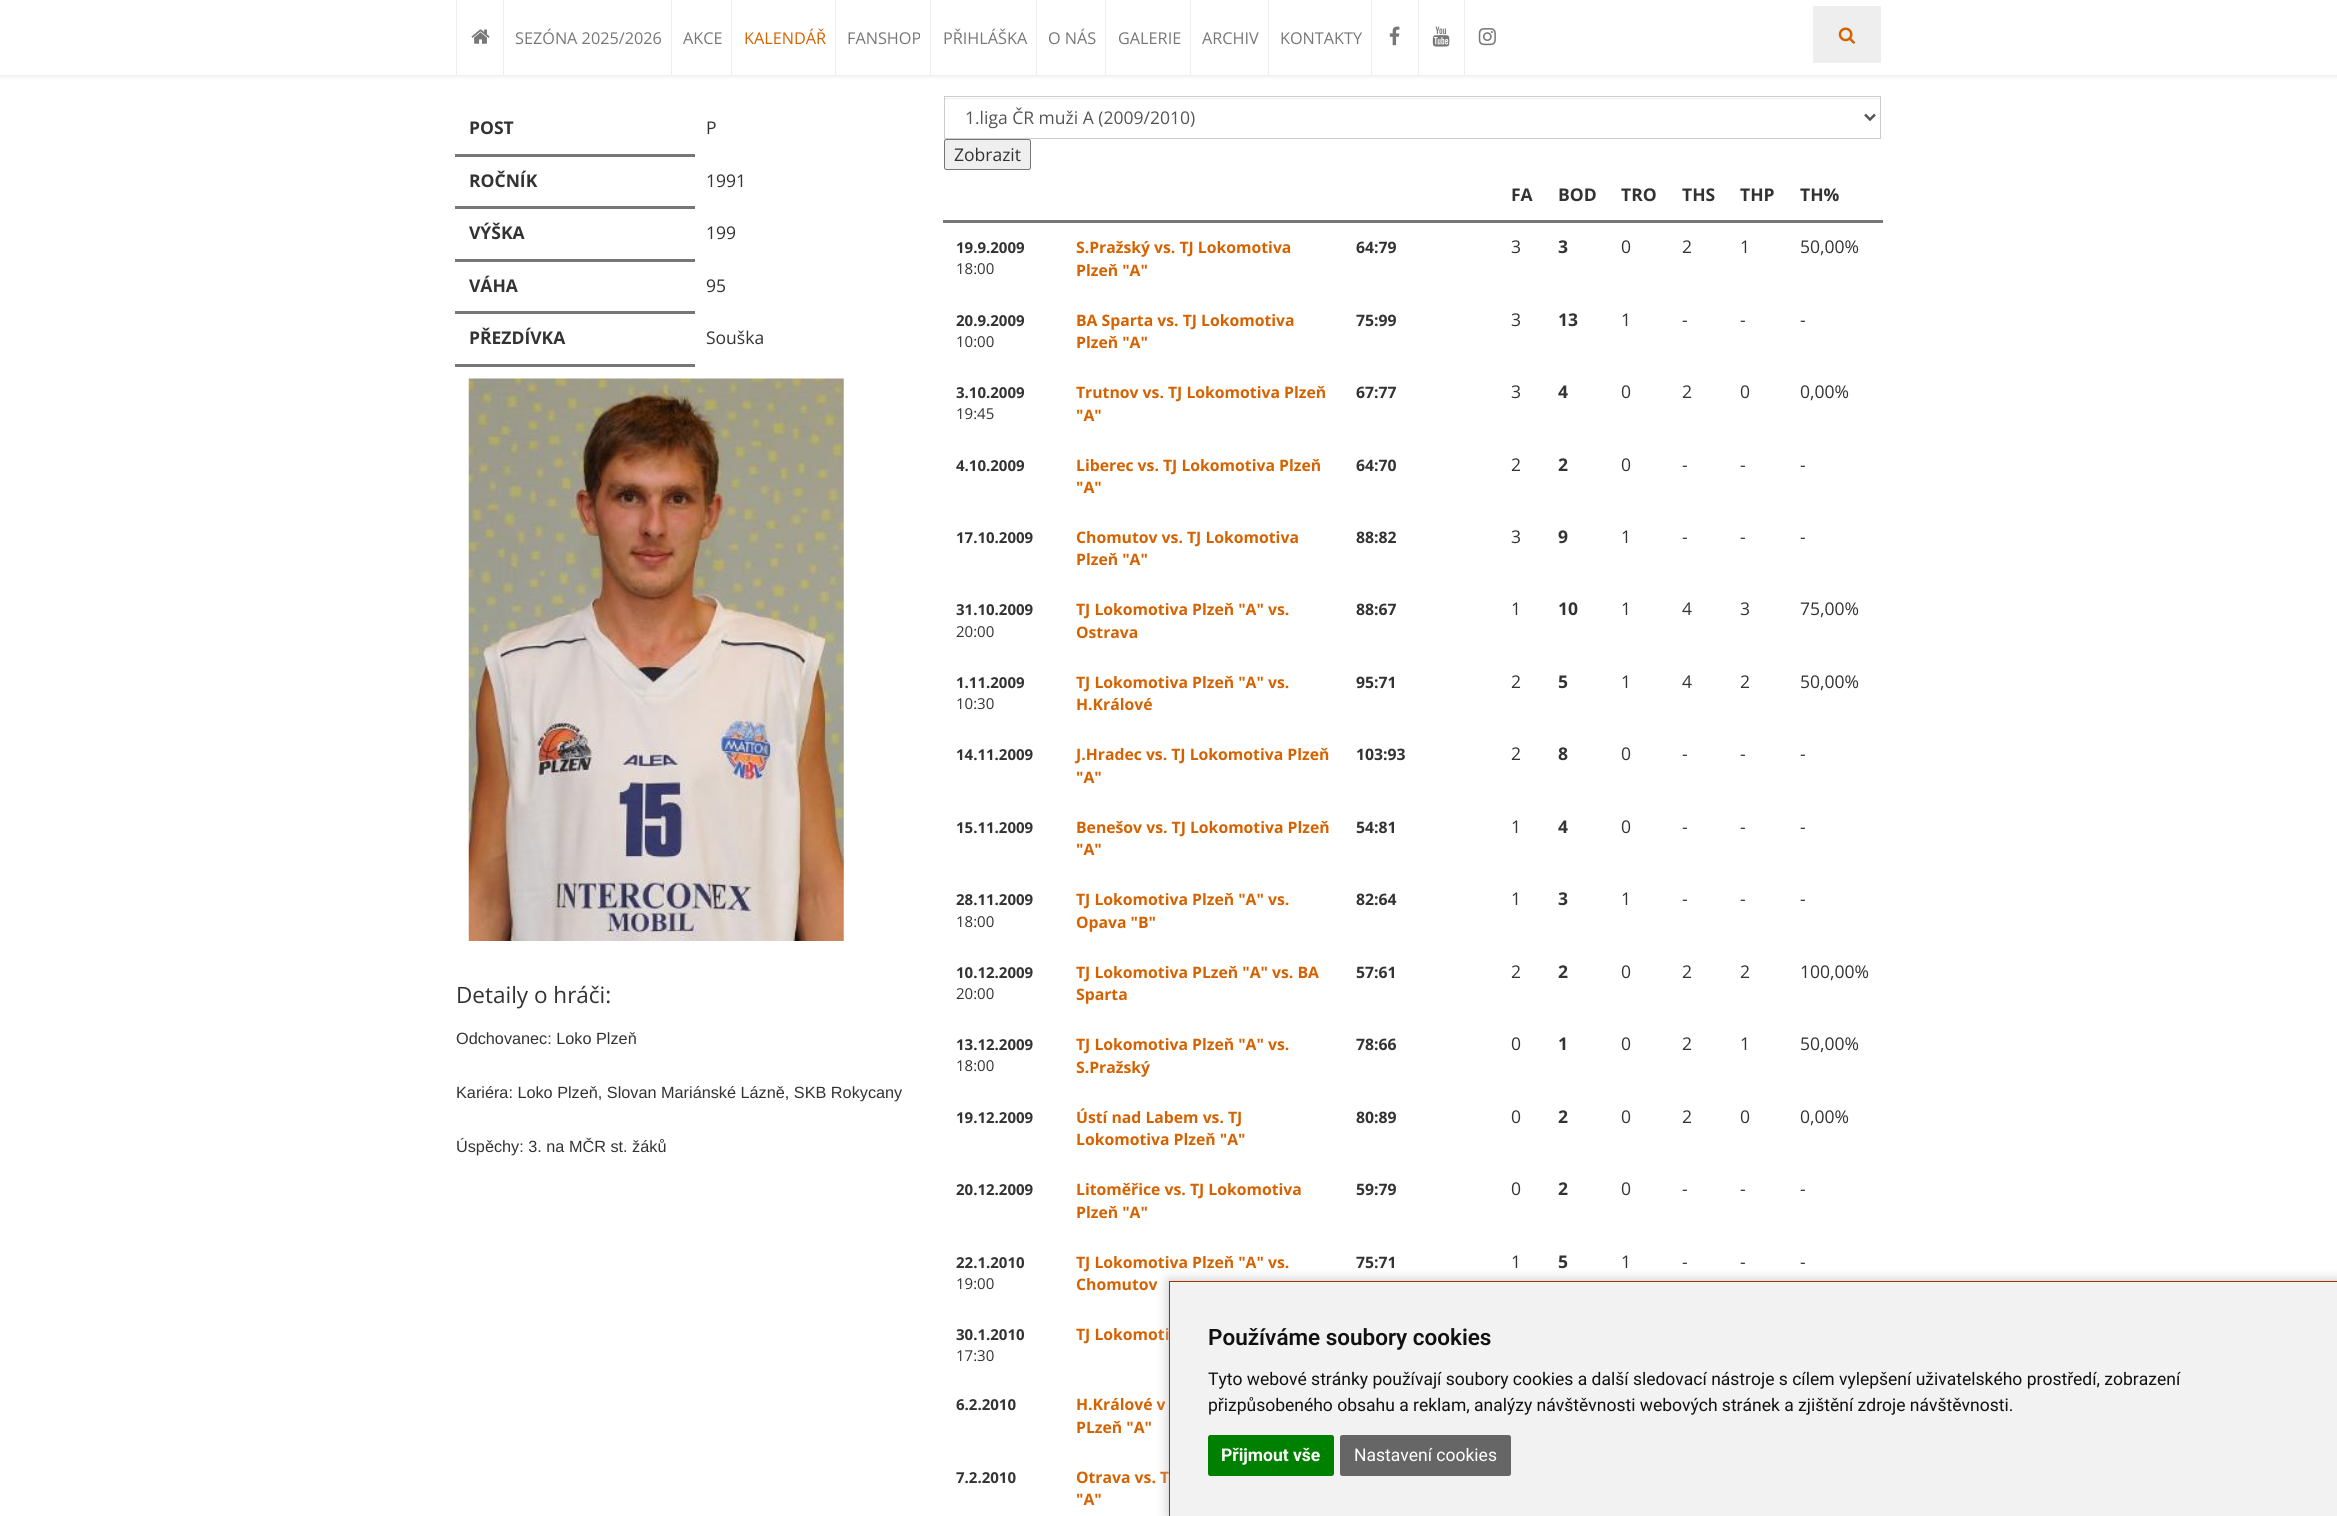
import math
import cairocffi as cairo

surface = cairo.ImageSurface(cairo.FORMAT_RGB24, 2337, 1516)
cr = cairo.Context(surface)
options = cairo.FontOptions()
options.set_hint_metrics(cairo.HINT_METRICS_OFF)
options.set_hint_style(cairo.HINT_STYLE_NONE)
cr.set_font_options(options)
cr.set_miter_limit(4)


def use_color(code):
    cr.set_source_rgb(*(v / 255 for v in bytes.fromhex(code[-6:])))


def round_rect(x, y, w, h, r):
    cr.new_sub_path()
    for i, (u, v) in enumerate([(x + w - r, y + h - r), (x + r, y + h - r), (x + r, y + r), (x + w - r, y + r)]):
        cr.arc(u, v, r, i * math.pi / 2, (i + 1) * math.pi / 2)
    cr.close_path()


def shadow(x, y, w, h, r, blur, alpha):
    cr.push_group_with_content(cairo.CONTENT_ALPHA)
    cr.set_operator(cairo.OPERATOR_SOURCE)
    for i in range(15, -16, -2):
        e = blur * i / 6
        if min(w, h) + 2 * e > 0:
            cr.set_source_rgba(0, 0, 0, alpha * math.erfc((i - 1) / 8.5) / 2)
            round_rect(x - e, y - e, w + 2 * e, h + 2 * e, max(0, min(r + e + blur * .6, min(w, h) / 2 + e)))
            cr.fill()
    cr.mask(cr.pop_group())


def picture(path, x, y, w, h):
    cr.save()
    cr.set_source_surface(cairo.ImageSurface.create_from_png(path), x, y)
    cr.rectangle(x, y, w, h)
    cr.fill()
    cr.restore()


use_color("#ffffff")
cr.paint()
use_color("#000000")
shadow(0, 1, 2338, 75, 0, 2.5, 0.1)
use_color("#ffffff")
cr.rectangle(0, 0, 2337, 75)
cr.fill()
use_color("#eeeeee")
cr.rectangle(456, 0, 1, 75)
cr.fill()
picture("img1.png", 471, 29, 19, 15)
cr.rectangle(503, 0, 1, 75)
cr.fill()
cr.select_font_face("Open Sans")
cr.set_font_size(16.25)
use_color("#777777")
cr.move_to(515, 44)
cr.show_text("SEZÓNA 2025/2026")
use_color("#eeeeee")
cr.rectangle(671, 0, 1, 75)
cr.fill()
use_color("#777777")
cr.move_to(683, 44)
cr.show_text("AKCE")
use_color("#eeeeee")
cr.rectangle(731, 0, 1, 75)
cr.fill()
use_color("#d56200")
cr.move_to(744, 44)
cr.show_text("KALENDÁŘ")
use_color("#eeeeee")
cr.rectangle(835, 0, 1, 75)
cr.fill()
use_color("#777777")
cr.move_to(847, 44)
cr.show_text("FANSHOP")
use_color("#eeeeee")
cr.rectangle(930, 0, 1, 75)
cr.fill()
use_color("#777777")
cr.move_to(943, 44)
cr.show_text("PŘIHLÁŠKA")
use_color("#eeeeee")
cr.rectangle(1036, 0, 1, 75)
cr.fill()
use_color("#777777")
cr.move_to(1048, 44)
cr.show_text("O NÁS")
use_color("#eeeeee")
cr.rectangle(1105, 0, 1, 75)
cr.fill()
use_color("#777777")
cr.move_to(1118, 44)
cr.show_text("GALERIE")
use_color("#eeeeee")
cr.rectangle(1190, 0, 1, 75)
cr.fill()
use_color("#777777")
cr.move_to(1202, 44)
cr.show_text("ARCHIV")
use_color("#eeeeee")
cr.rectangle(1268, 0, 1, 75)
cr.fill()
use_color("#777777")
cr.move_to(1280, 44)
cr.show_text("KONTAKTY")
use_color("#eeeeee")
cr.rectangle(1371, 0, 1, 75)
cr.fill()
picture("img2.png", 1389, 26, 11, 20)
cr.rectangle(1418, 0, 1, 75)
cr.fill()
picture("img3.png", 1432, 26, 18, 21)
cr.rectangle(1464, 0, 1, 75)
cr.fill()
picture("img4.png", 1478, 28, 18, 18)
cr.rectangle(1813, 6, 68, 57)
cr.fill()
picture("img5.png", 1838, 27, 17, 17)
use_color("#777777")
cr.rectangle(455, 154, 240, 3)
cr.fill()
cr.select_font_face("Open Sans", cairo.FONT_SLANT_NORMAL, cairo.FONT_WEIGHT_BOLD)
cr.set_font_size(17.5)
use_color("#333333")
cr.move_to(469, 134)
cr.show_text("POST")
cr.select_font_face("Open Sans")
cr.move_to(706, 134)
cr.show_text("P")
use_color("#777777")
cr.rectangle(455, 206, 240, 3)
cr.fill()
cr.select_font_face("Open Sans", cairo.FONT_SLANT_NORMAL, cairo.FONT_WEIGHT_BOLD)
use_color("#333333")
cr.move_to(469, 187)
cr.show_text("ROČNÍK")
cr.select_font_face("Open Sans")
cr.move_to(706, 187)
cr.show_text("1991")
use_color("#777777")
cr.rectangle(455, 259, 240, 3)
cr.fill()
cr.select_font_face("Open Sans", cairo.FONT_SLANT_NORMAL, cairo.FONT_WEIGHT_BOLD)
use_color("#333333")
cr.move_to(469, 239)
cr.show_text("VÝŠKA")
cr.select_font_face("Open Sans")
cr.move_to(706, 239)
cr.show_text("199")
use_color("#777777")
cr.rectangle(455, 311, 240, 3)
cr.fill()
cr.select_font_face("Open Sans", cairo.FONT_SLANT_NORMAL, cairo.FONT_WEIGHT_BOLD)
use_color("#333333")
cr.move_to(469, 292)
cr.show_text("VÁHA")
cr.select_font_face("Open Sans")
cr.move_to(706, 292)
cr.show_text("95")
use_color("#777777")
cr.rectangle(455, 364, 240, 3)
cr.fill()
cr.select_font_face("Open Sans", cairo.FONT_SLANT_NORMAL, cairo.FONT_WEIGHT_BOLD)
use_color("#333333")
cr.move_to(469, 344)
cr.show_text("PŘEZDÍVKA")
cr.select_font_face("Open Sans")
cr.move_to(706, 344)
cr.show_text("Souška")
picture("img6.png", 468, 378, 376, 563)
cr.set_font_size(22.5)
cr.move_to(456, 1003)
cr.show_text("Detaily o hráči:")
cr.select_font_face("Liberation Sans")
cr.set_font_size(16.25)
cr.move_to(456, 1044)
cr.show_text("Odchovanec: Loko Plzeň")
cr.move_to(456, 1098)
cr.show_text("Kariéra: Loko Plzeň, Slovan Mariánské Lázně, SKB Rokycany")
cr.move_to(456, 1152)
cr.show_text("Úspěchy: 3. na MČR st. žáků")
use_color("#ececec")
cr.rectangle(945, 98, 935, 1)
cr.fill()
cr.rectangle(944.5, 96.5, 936, 42)
use_color("#cccccc")
cr.set_line_width(1)
cr.stroke()
cr.new_path()
cr.move_to(1865, 114.5)
cr.line_to(1870, 119.5)
cr.line_to(1875, 114.5)
use_color("#555555")
cr.set_line_width(2.5)
cr.stroke()
cr.select_font_face("Open Sans")
cr.set_font_size(17.5)
cr.move_to(965, 124)
cr.show_text("1.liga ČR muži A (2009/2010)")
use_color("#efefef")
round_rect(944.5, 139.5, 86, 30, 2)
cr.fill_preserve()
use_color("#767676")
cr.set_line_width(1)
cr.stroke()
use_color("#333333")
cr.move_to(954, 161)
cr.show_text("Zobrazit")
cr.select_font_face("Open Sans", cairo.FONT_SLANT_NORMAL, cairo.FONT_WEIGHT_BOLD)
cr.move_to(1511, 201)
cr.show_text("FA")
cr.move_to(1558, 201)
cr.show_text("BOD")
cr.move_to(1621, 201)
cr.show_text("TRO")
cr.move_to(1682, 201)
cr.show_text("THS")
cr.move_to(1740, 201)
cr.show_text("THP")
use_color("#777777")
cr.rectangle(943, 220, 940, 3)
cr.fill()
use_color("#333333")
cr.move_to(1800, 201)
cr.show_text("TH%")
cr.set_font_size(15)
cr.move_to(956, 253)
cr.show_text("19.9.2009")
cr.select_font_face("Open Sans")
cr.move_to(956, 274)
cr.show_text("18:00")
cr.select_font_face("Open Sans", cairo.FONT_SLANT_NORMAL, cairo.FONT_WEIGHT_BOLD)
cr.set_font_size(15.75)
use_color("#d56200")
cr.move_to(1076, 253)
cr.show_text("S.Pražský vs. TJ Lokomotiva")
cr.move_to(1076, 276)
cr.show_text("Plzeň \"A\"")
use_color("#333333")
cr.move_to(1356, 253)
cr.show_text("64:79")
cr.select_font_face("Open Sans")
cr.set_font_size(17.5)
cr.move_to(1511, 253)
cr.show_text("3")
cr.select_font_face("Open Sans", cairo.FONT_SLANT_NORMAL, cairo.FONT_WEIGHT_BOLD)
cr.move_to(1558, 253)
cr.show_text("3")
cr.select_font_face("Open Sans")
cr.move_to(1621, 253)
cr.show_text("0")
cr.move_to(1682, 253)
cr.show_text("2")
cr.move_to(1740, 253)
cr.show_text("1")
cr.move_to(1800, 253)
cr.show_text("50,00%")
cr.select_font_face("Open Sans", cairo.FONT_SLANT_NORMAL, cairo.FONT_WEIGHT_BOLD)
cr.set_font_size(15)
cr.move_to(956, 326)
cr.show_text("20.9.2009")
cr.select_font_face("Open Sans")
cr.move_to(956, 347)
cr.show_text("10:00")
cr.select_font_face("Open Sans", cairo.FONT_SLANT_NORMAL, cairo.FONT_WEIGHT_BOLD)
cr.set_font_size(15.75)
use_color("#d56200")
cr.move_to(1076, 326)
cr.show_text("BA Sparta vs. TJ Lokomotiva")
cr.move_to(1076, 348)
cr.show_text("Plzeň \"A\"")
use_color("#333333")
cr.move_to(1356, 326)
cr.show_text("75:99")
cr.select_font_face("Open Sans")
cr.set_font_size(17.5)
cr.move_to(1511, 326)
cr.show_text("3")
cr.select_font_face("Open Sans", cairo.FONT_SLANT_NORMAL, cairo.FONT_WEIGHT_BOLD)
cr.move_to(1558, 326)
cr.show_text("13")
cr.select_font_face("Open Sans")
cr.move_to(1621, 326)
cr.show_text("1")
cr.move_to(1682, 326)
cr.show_text("-")
cr.move_to(1740, 326)
cr.show_text("-")
cr.move_to(1800, 326)
cr.show_text("-")
cr.select_font_face("Open Sans", cairo.FONT_SLANT_NORMAL, cairo.FONT_WEIGHT_BOLD)
cr.set_font_size(15)
cr.move_to(956, 398)
cr.show_text("3.10.2009")
cr.select_font_face("Open Sans")
cr.move_to(956, 419)
cr.show_text("19:45")
cr.select_font_face("Open Sans", cairo.FONT_SLANT_NORMAL, cairo.FONT_WEIGHT_BOLD)
cr.set_font_size(15.75)
use_color("#d56200")
cr.move_to(1076, 398)
cr.show_text("Trutnov vs. TJ Lokomotiva Plzeň")
cr.move_to(1076, 421)
cr.show_text("\"A\"")
use_color("#333333")
cr.move_to(1356, 398)
cr.show_text("67:77")
cr.select_font_face("Open Sans")
cr.set_font_size(17.5)
cr.move_to(1511, 398)
cr.show_text("3")
cr.select_font_face("Open Sans", cairo.FONT_SLANT_NORMAL, cairo.FONT_WEIGHT_BOLD)
cr.move_to(1558, 398)
cr.show_text("4")
cr.select_font_face("Open Sans")
cr.move_to(1621, 398)
cr.show_text("0")
cr.move_to(1682, 398)
cr.show_text("2")
cr.move_to(1740, 398)
cr.show_text("0")
cr.move_to(1800, 398)
cr.show_text("0,00%")
cr.select_font_face("Open Sans", cairo.FONT_SLANT_NORMAL, cairo.FONT_WEIGHT_BOLD)
cr.set_font_size(15)
cr.move_to(956, 471)
cr.show_text("4.10.2009")
cr.set_font_size(15.75)
use_color("#d56200")
cr.move_to(1076, 471)
cr.show_text("Liberec vs. TJ Lokomotiva Plzeň")
cr.move_to(1076, 493)
cr.show_text("\"A\"")
use_color("#333333")
cr.move_to(1356, 471)
cr.show_text("64:70")
cr.select_font_face("Open Sans")
cr.set_font_size(17.5)
cr.move_to(1511, 471)
cr.show_text("2")
cr.select_font_face("Open Sans", cairo.FONT_SLANT_NORMAL, cairo.FONT_WEIGHT_BOLD)
cr.move_to(1558, 471)
cr.show_text("2")
cr.select_font_face("Open Sans")
cr.move_to(1621, 471)
cr.show_text("0")
cr.move_to(1682, 471)
cr.show_text("-")
cr.move_to(1740, 471)
cr.show_text("-")
cr.move_to(1800, 471)
cr.show_text("-")
cr.select_font_face("Open Sans", cairo.FONT_SLANT_NORMAL, cairo.FONT_WEIGHT_BOLD)
cr.set_font_size(15)
cr.move_to(956, 543)
cr.show_text("17.10.2009")
cr.set_font_size(15.75)
use_color("#d56200")
cr.move_to(1076, 543)
cr.show_text("Chomutov vs. TJ Lokomotiva")
cr.move_to(1076, 565)
cr.show_text("Plzeň \"A\"")
use_color("#333333")
cr.move_to(1356, 543)
cr.show_text("88:82")
cr.select_font_face("Open Sans")
cr.set_font_size(17.5)
cr.move_to(1511, 543)
cr.show_text("3")
cr.select_font_face("Open Sans", cairo.FONT_SLANT_NORMAL, cairo.FONT_WEIGHT_BOLD)
cr.move_to(1558, 543)
cr.show_text("9")
cr.select_font_face("Open Sans")
cr.move_to(1621, 543)
cr.show_text("1")
cr.move_to(1682, 543)
cr.show_text("-")
cr.move_to(1740, 543)
cr.show_text("-")
cr.move_to(1800, 543)
cr.show_text("-")
cr.select_font_face("Open Sans", cairo.FONT_SLANT_NORMAL, cairo.FONT_WEIGHT_BOLD)
cr.set_font_size(15)
cr.move_to(956, 615)
cr.show_text("31.10.2009")
cr.select_font_face("Open Sans")
cr.move_to(956, 637)
cr.show_text("20:00")
cr.select_font_face("Open Sans", cairo.FONT_SLANT_NORMAL, cairo.FONT_WEIGHT_BOLD)
cr.set_font_size(15.75)
use_color("#d56200")
cr.move_to(1076, 615)
cr.show_text("TJ Lokomotiva Plzeň \"A\" vs.")
cr.move_to(1076, 638)
cr.show_text("Ostrava")
use_color("#333333")
cr.move_to(1356, 615)
cr.show_text("88:67")
cr.select_font_face("Open Sans")
cr.set_font_size(17.5)
cr.move_to(1511, 615)
cr.show_text("1")
cr.select_font_face("Open Sans", cairo.FONT_SLANT_NORMAL, cairo.FONT_WEIGHT_BOLD)
cr.move_to(1558, 615)
cr.show_text("10")
cr.select_font_face("Open Sans")
cr.move_to(1621, 615)
cr.show_text("1")
cr.move_to(1682, 615)
cr.show_text("4")
cr.move_to(1740, 615)
cr.show_text("3")
cr.move_to(1800, 615)
cr.show_text("75,00%")
cr.select_font_face("Open Sans", cairo.FONT_SLANT_NORMAL, cairo.FONT_WEIGHT_BOLD)
cr.set_font_size(15)
cr.move_to(956, 688)
cr.show_text("1.11.2009")
cr.select_font_face("Open Sans")
cr.move_to(956, 709)
cr.show_text("10:30")
cr.select_font_face("Open Sans", cairo.FONT_SLANT_NORMAL, cairo.FONT_WEIGHT_BOLD)
cr.set_font_size(15.75)
use_color("#d56200")
cr.move_to(1076, 688)
cr.show_text("TJ Lokomotiva Plzeň \"A\" vs.")
cr.move_to(1076, 710)
cr.show_text("H.Králové")
use_color("#333333")
cr.move_to(1356, 688)
cr.show_text("95:71")
cr.select_font_face("Open Sans")
cr.set_font_size(17.5)
cr.move_to(1511, 688)
cr.show_text("2")
cr.select_font_face("Open Sans", cairo.FONT_SLANT_NORMAL, cairo.FONT_WEIGHT_BOLD)
cr.move_to(1558, 688)
cr.show_text("5")
cr.select_font_face("Open Sans")
cr.move_to(1621, 688)
cr.show_text("1")
cr.move_to(1682, 688)
cr.show_text("4")
cr.move_to(1740, 688)
cr.show_text("2")
cr.move_to(1800, 688)
cr.show_text("50,00%")
cr.select_font_face("Open Sans", cairo.FONT_SLANT_NORMAL, cairo.FONT_WEIGHT_BOLD)
cr.set_font_size(15)
cr.move_to(956, 760)
cr.show_text("14.11.2009")
cr.set_font_size(15.75)
use_color("#d56200")
cr.move_to(1076, 760)
cr.show_text("J.Hradec vs. TJ Lokomotiva Plzeň")
cr.move_to(1076, 783)
cr.show_text("\"A\"")
use_color("#333333")
cr.move_to(1356, 760)
cr.show_text("103:93")
cr.select_font_face("Open Sans")
cr.set_font_size(17.5)
cr.move_to(1511, 760)
cr.show_text("2")
cr.select_font_face("Open Sans", cairo.FONT_SLANT_NORMAL, cairo.FONT_WEIGHT_BOLD)
cr.move_to(1558, 760)
cr.show_text("8")
cr.select_font_face("Open Sans")
cr.move_to(1621, 760)
cr.show_text("0")
cr.move_to(1682, 760)
cr.show_text("-")
cr.move_to(1740, 760)
cr.show_text("-")
cr.move_to(1800, 760)
cr.show_text("-")
cr.select_font_face("Open Sans", cairo.FONT_SLANT_NORMAL, cairo.FONT_WEIGHT_BOLD)
cr.set_font_size(15)
cr.move_to(956, 833)
cr.show_text("15.11.2009")
cr.set_font_size(15.75)
use_color("#d56200")
cr.move_to(1076, 833)
cr.show_text("Benešov vs. TJ Lokomotiva Plzeň")
cr.move_to(1076, 855)
cr.show_text("\"A\"")
use_color("#333333")
cr.move_to(1356, 833)
cr.show_text("54:81")
cr.select_font_face("Open Sans")
cr.set_font_size(17.5)
cr.move_to(1511, 833)
cr.show_text("1")
cr.select_font_face("Open Sans", cairo.FONT_SLANT_NORMAL, cairo.FONT_WEIGHT_BOLD)
cr.move_to(1558, 833)
cr.show_text("4")
cr.select_font_face("Open Sans")
cr.move_to(1621, 833)
cr.show_text("0")
cr.move_to(1682, 833)
cr.show_text("-")
cr.move_to(1740, 833)
cr.show_text("-")
cr.move_to(1800, 833)
cr.show_text("-")
cr.select_font_face("Open Sans", cairo.FONT_SLANT_NORMAL, cairo.FONT_WEIGHT_BOLD)
cr.set_font_size(15)
cr.move_to(956, 905)
cr.show_text("28.11.2009")
cr.select_font_face("Open Sans")
cr.move_to(956, 927)
cr.show_text("18:00")
cr.select_font_face("Open Sans", cairo.FONT_SLANT_NORMAL, cairo.FONT_WEIGHT_BOLD)
cr.set_font_size(15.75)
use_color("#d56200")
cr.move_to(1076, 905)
cr.show_text("TJ Lokomotiva Plzeň \"A\" vs.")
cr.move_to(1076, 928)
cr.show_text("Opava \"B\"")
use_color("#333333")
cr.move_to(1356, 905)
cr.show_text("82:64")
cr.select_font_face("Open Sans")
cr.set_font_size(17.5)
cr.move_to(1511, 905)
cr.show_text("1")
cr.select_font_face("Open Sans", cairo.FONT_SLANT_NORMAL, cairo.FONT_WEIGHT_BOLD)
cr.move_to(1558, 905)
cr.show_text("3")
cr.select_font_face("Open Sans")
cr.move_to(1621, 905)
cr.show_text("1")
cr.move_to(1682, 905)
cr.show_text("-")
cr.move_to(1740, 905)
cr.show_text("-")
cr.move_to(1800, 905)
cr.show_text("-")
cr.select_font_face("Open Sans", cairo.FONT_SLANT_NORMAL, cairo.FONT_WEIGHT_BOLD)
cr.set_font_size(15)
cr.move_to(956, 978)
cr.show_text("10.12.2009")
cr.select_font_face("Open Sans")
cr.move_to(956, 999)
cr.show_text("20:00")
cr.select_font_face("Open Sans", cairo.FONT_SLANT_NORMAL, cairo.FONT_WEIGHT_BOLD)
cr.set_font_size(15.75)
use_color("#d56200")
cr.move_to(1076, 978)
cr.show_text("TJ Lokomotiva PLzeň \"A\" vs. BA")
cr.move_to(1076, 1000)
cr.show_text("Sparta")
use_color("#333333")
cr.move_to(1356, 978)
cr.show_text("57:61")
cr.select_font_face("Open Sans")
cr.set_font_size(17.5)
cr.move_to(1511, 978)
cr.show_text("2")
cr.select_font_face("Open Sans", cairo.FONT_SLANT_NORMAL, cairo.FONT_WEIGHT_BOLD)
cr.move_to(1558, 978)
cr.show_text("2")
cr.select_font_face("Open Sans")
cr.move_to(1621, 978)
cr.show_text("0")
cr.move_to(1682, 978)
cr.show_text("2")
cr.move_to(1740, 978)
cr.show_text("2")
cr.move_to(1800, 978)
cr.show_text("100,00%")
cr.select_font_face("Open Sans", cairo.FONT_SLANT_NORMAL, cairo.FONT_WEIGHT_BOLD)
cr.set_font_size(15)
cr.move_to(956, 1050)
cr.show_text("13.12.2009")
cr.select_font_face("Open Sans")
cr.move_to(956, 1071)
cr.show_text("18:00")
cr.select_font_face("Open Sans", cairo.FONT_SLANT_NORMAL, cairo.FONT_WEIGHT_BOLD)
cr.set_font_size(15.75)
use_color("#d56200")
cr.move_to(1076, 1050)
cr.show_text("TJ Lokomotiva Plzeň \"A\" vs.")
cr.move_to(1076, 1073)
cr.show_text("S.Pražský")
use_color("#333333")
cr.move_to(1356, 1050)
cr.show_text("78:66")
cr.select_font_face("Open Sans")
cr.set_font_size(17.5)
cr.move_to(1511, 1050)
cr.show_text("0")
cr.select_font_face("Open Sans", cairo.FONT_SLANT_NORMAL, cairo.FONT_WEIGHT_BOLD)
cr.move_to(1558, 1050)
cr.show_text("1")
cr.select_font_face("Open Sans")
cr.move_to(1621, 1050)
cr.show_text("0")
cr.move_to(1682, 1050)
cr.show_text("2")
cr.move_to(1740, 1050)
cr.show_text("1")
cr.move_to(1800, 1050)
cr.show_text("50,00%")
cr.select_font_face("Open Sans", cairo.FONT_SLANT_NORMAL, cairo.FONT_WEIGHT_BOLD)
cr.set_font_size(15)
cr.move_to(956, 1123)
cr.show_text("19.12.2009")
cr.set_font_size(15.75)
use_color("#d56200")
cr.move_to(1076, 1123)
cr.show_text("Ústí nad Labem vs. TJ")
cr.move_to(1076, 1145)
cr.show_text("Lokomotiva Plzeň \"A\"")
use_color("#333333")
cr.move_to(1356, 1123)
cr.show_text("80:89")
cr.select_font_face("Open Sans")
cr.set_font_size(17.5)
cr.move_to(1511, 1123)
cr.show_text("0")
cr.select_font_face("Open Sans", cairo.FONT_SLANT_NORMAL, cairo.FONT_WEIGHT_BOLD)
cr.move_to(1558, 1123)
cr.show_text("2")
cr.select_font_face("Open Sans")
cr.move_to(1621, 1123)
cr.show_text("0")
cr.move_to(1682, 1123)
cr.show_text("2")
cr.move_to(1740, 1123)
cr.show_text("0")
cr.move_to(1800, 1123)
cr.show_text("0,00%")
cr.select_font_face("Open Sans", cairo.FONT_SLANT_NORMAL, cairo.FONT_WEIGHT_BOLD)
cr.set_font_size(15)
cr.move_to(956, 1195)
cr.show_text("20.12.2009")
cr.set_font_size(15.75)
use_color("#d56200")
cr.move_to(1076, 1195)
cr.show_text("Litoměřice vs. TJ Lokomotiva")
cr.move_to(1076, 1218)
cr.show_text("Plzeň \"A\"")
use_color("#333333")
cr.move_to(1356, 1195)
cr.show_text("59:79")
cr.select_font_face("Open Sans")
cr.set_font_size(17.5)
cr.move_to(1511, 1195)
cr.show_text("0")
cr.select_font_face("Open Sans", cairo.FONT_SLANT_NORMAL, cairo.FONT_WEIGHT_BOLD)
cr.move_to(1558, 1195)
cr.show_text("2")
cr.select_font_face("Open Sans")
cr.move_to(1621, 1195)
cr.show_text("0")
cr.move_to(1682, 1195)
cr.show_text("-")
cr.move_to(1740, 1195)
cr.show_text("-")
cr.move_to(1800, 1195)
cr.show_text("-")
cr.select_font_face("Open Sans", cairo.FONT_SLANT_NORMAL, cairo.FONT_WEIGHT_BOLD)
cr.set_font_size(15)
cr.move_to(956, 1268)
cr.show_text("22.1.2010")
cr.select_font_face("Open Sans")
cr.move_to(956, 1289)
cr.show_text("19:00")
cr.select_font_face("Open Sans", cairo.FONT_SLANT_NORMAL, cairo.FONT_WEIGHT_BOLD)
cr.set_font_size(15.75)
use_color("#d56200")
cr.move_to(1076, 1268)
cr.show_text("TJ Lokomotiva Plzeň \"A\" vs.")
cr.move_to(1076, 1290)
cr.show_text("Chomutov")
use_color("#333333")
cr.move_to(1356, 1268)
cr.show_text("75:71")
cr.select_font_face("Open Sans")
cr.set_font_size(17.5)
cr.move_to(1511, 1268)
cr.show_text("1")
cr.select_font_face("Open Sans", cairo.FONT_SLANT_NORMAL, cairo.FONT_WEIGHT_BOLD)
cr.move_to(1558, 1268)
cr.show_text("5")
cr.select_font_face("Open Sans")
cr.move_to(1621, 1268)
cr.show_text("1")
cr.move_to(1682, 1268)
cr.show_text("-")
cr.move_to(1740, 1268)
cr.show_text("-")
cr.move_to(1800, 1268)
cr.show_text("-")
cr.select_font_face("Open Sans", cairo.FONT_SLANT_NORMAL, cairo.FONT_WEIGHT_BOLD)
cr.set_font_size(15)
cr.move_to(956, 1340)
cr.show_text("30.1.2010")
cr.select_font_face("Open Sans")
cr.move_to(956, 1361)
cr.show_text("17:30")
cr.select_font_face("Open Sans", cairo.FONT_SLANT_NORMAL, cairo.FONT_WEIGHT_BOLD)
cr.set_font_size(15.75)
use_color("#d56200")
cr.move_to(1076, 1340)
cr.show_text("TJ Lokomoti")
cr.set_font_size(15)
use_color("#333333")
cr.move_to(956, 1410)
cr.show_text("6.2.2010")
cr.set_font_size(15.75)
use_color("#d56200")
cr.move_to(1076, 1410)
cr.show_text("H.Králové v")
cr.move_to(1076, 1433)
cr.show_text("PLzeň \"A\"")
cr.set_font_size(15)
use_color("#333333")
cr.move_to(956, 1483)
cr.show_text("7.2.2010")
cr.set_font_size(15.75)
use_color("#d56200")
cr.move_to(1076, 1483)
cr.show_text("Otrava vs. T")
cr.move_to(1076, 1505)
cr.show_text("\"A\"")
use_color("#c0c0c0")
shadow(1169, 1281, 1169, 235, 0, 6, 1)
use_color("#f2f2f2")
cr.rectangle(1170, 1282, 1167, 234)
cr.fill()
use_color("#a53200")
cr.rectangle(1169, 1281, 1168, 1)
cr.fill()
cr.rectangle(1169, 1281, 1, 235)
cr.fill()
cr.select_font_face("Roboto SemiBold")
cr.set_font_size(22.5)
use_color("#111111")
cr.move_to(1208, 1345)
cr.show_text("Používáme soubory cookies")
cr.select_font_face("Roboto")
cr.set_font_size(17.5)
cr.move_to(1208, 1385)
cr.show_text("Tyto webové stránky používají soubory cookies a další sledovací nástroje s cílem vylepšení uživatelského prostředí, zobrazení")
cr.move_to(1208, 1411)
cr.show_text("přizpůsobeného obsahu a reklam, analýzy návštěvnosti webových stránek a zjištění zdroje návštěvnosti.")
use_color("#008000")
round_rect(1208.5, 1435.5, 125, 40, 2)
cr.fill_preserve()
cr.stroke()
cr.select_font_face("Roboto", cairo.FONT_SLANT_NORMAL, cairo.FONT_WEIGHT_BOLD)
use_color("#ffffff")
cr.move_to(1221, 1461)
cr.show_text("Přijmout vše")
use_color("#666666")
round_rect(1340.5, 1435.5, 170, 40, 2)
cr.fill_preserve()
cr.stroke()
cr.select_font_face("Roboto")
use_color("#ffffff")
cr.move_to(1354, 1461)
cr.show_text("Nastavení cookies")
surface.write_to_png("result.png")
